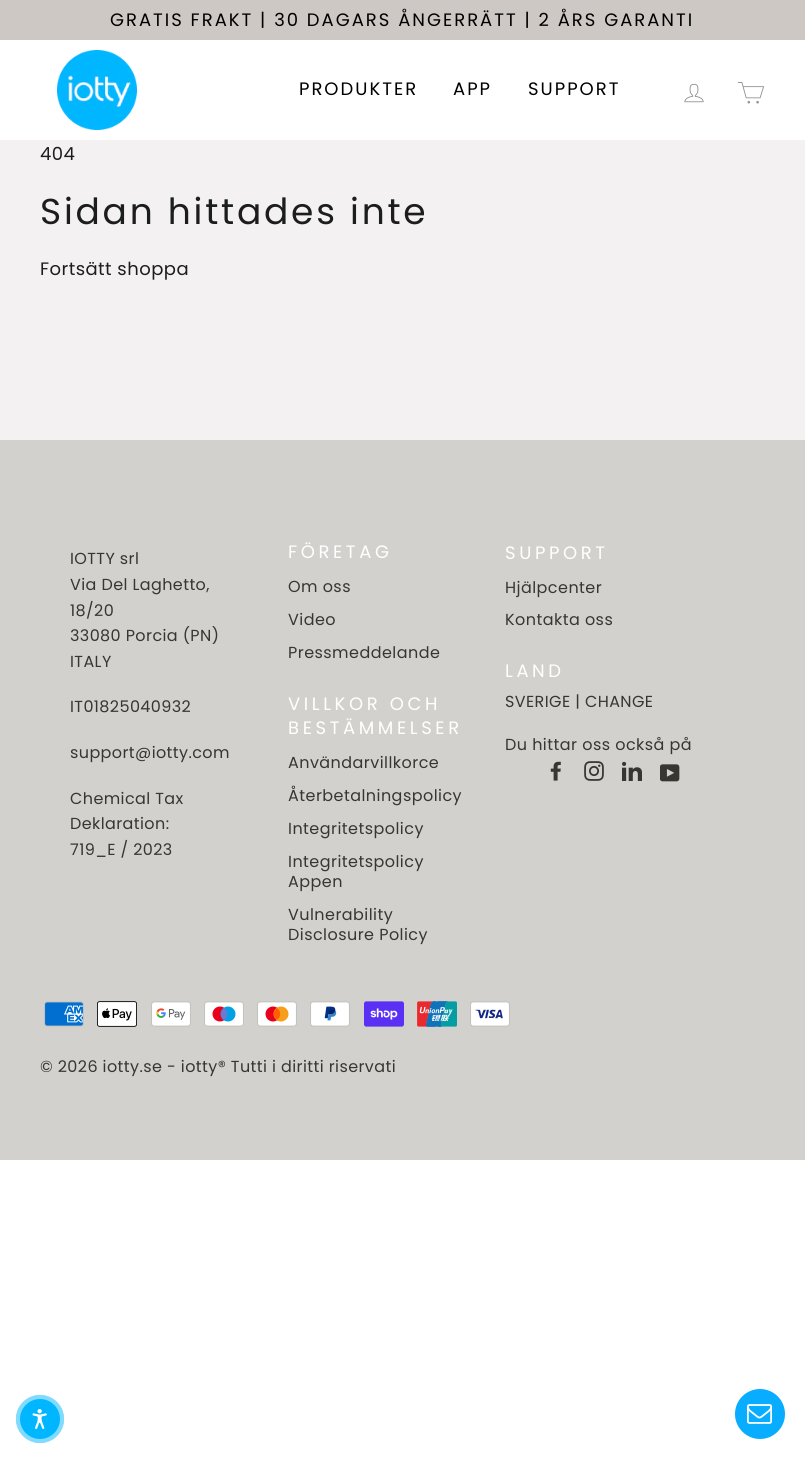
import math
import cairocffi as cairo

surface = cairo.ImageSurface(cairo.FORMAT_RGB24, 805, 1459)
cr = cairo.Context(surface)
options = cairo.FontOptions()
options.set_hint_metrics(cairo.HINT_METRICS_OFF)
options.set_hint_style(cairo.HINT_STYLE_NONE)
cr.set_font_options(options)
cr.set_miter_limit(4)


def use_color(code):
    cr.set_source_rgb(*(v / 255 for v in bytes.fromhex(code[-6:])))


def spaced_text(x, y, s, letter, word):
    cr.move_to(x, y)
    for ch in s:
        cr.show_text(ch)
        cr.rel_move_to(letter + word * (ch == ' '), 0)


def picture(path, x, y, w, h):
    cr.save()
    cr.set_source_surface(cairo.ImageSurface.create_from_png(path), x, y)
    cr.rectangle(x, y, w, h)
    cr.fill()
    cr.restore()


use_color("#ffffff")
cr.paint()
use_color("#cdc8c4")
cr.rectangle(0, 0, 805, 40)
cr.fill()
cr.select_font_face("Poppins")
cr.set_font_size(18)
use_color("#000000")
spaced_text(110, 26, "GRATIS FRAKT | 30 DAGARS ÅNGERRÄTT | 2 ÅRS GARANTI", 2, 0)
picture("img1.png", 57, 50, 80, 80)
spaced_text(299, 95, "PRODUKTER", 2, 0)
spaced_text(453, 95, "APP", 2, 0)
spaced_text(528, 95, "SUPPORT", 2, 0)
picture("img2.png", 684, 83, 20, 20)
picture("img3.png", 737, 82, 27, 22)
use_color("#f4f1f2")
cr.rectangle(0, 140, 805, 300)
cr.fill()
use_color("#1c1d1d")
spaced_text(40, 160, "404", 0.45, 0)
cr.set_font_size(36)
spaced_text(40, 224, "Sidan hittades inte", 2.75, 0)
cr.set_font_size(18)
spaced_text(40, 275, "Fortsätt shoppa", 0.45, 0)
use_color("#d2d1cd")
cr.rectangle(0, 440, 805, 720)
cr.fill()
cr.set_font_size(16)
use_color("#373631")
spaced_text(70, 564, "IOTTY srl", 0.4, 0)
spaced_text(70, 590, "Via Del Laghetto,", 0.4, 0)
spaced_text(70, 616, "18/20", 0.4, 0)
spaced_text(70, 641, "33080 Porcia (PN)", 0.4, 0)
spaced_text(70, 667, "ITALY", 0.4, 0)
spaced_text(70, 712, "IT01825040932", 0.4, 0)
spaced_text(70, 758, "support@iotty.com", 0.4, 0)
spaced_text(70, 804, "Chemical Tax", 0.4, 0)
spaced_text(70, 829, "Deklaration:", 0.4, 0)
spaced_text(70, 855, "719_E / 2023", 0.4, 0)
cr.set_font_size(18)
use_color("#ffffff")
spaced_text(288, 558, "FÖRETAG", 3.6, 0)
cr.set_font_size(16)
use_color("#373631")
spaced_text(288, 592, "Om oss", 0.45, 0)
spaced_text(288, 625, "Video", 0.45, 0)
spaced_text(288, 658, "Pressmeddelande", 0.45, 0)
cr.set_font_size(18)
use_color("#ffffff")
spaced_text(288, 710, "VILLKOR OCH", 3.6, 0)
spaced_text(288, 734, "BESTÄMMELSER", 3.6, 0)
cr.set_font_size(16)
use_color("#373631")
spaced_text(288, 768, "Användarvillkorce", 0.45, 0)
spaced_text(288, 801, "Återbetalningspolicy", 0.45, 0)
spaced_text(288, 834, "Integritetspolicy", 0.45, 0)
spaced_text(288, 867, "Integritetspolicy", 0.45, 0)
spaced_text(288, 887, "Appen", 0.45, 0)
spaced_text(288, 920, "Vulnerability", 0.45, 0)
spaced_text(288, 940, "Disclosure Policy", 0.45, 0)
cr.set_font_size(18)
use_color("#ffffff")
spaced_text(505, 559, "SUPPORT", 3.6, 0)
cr.set_font_size(16)
use_color("#373631")
spaced_text(505, 593, "Hjälpcenter", 0.45, 0)
spaced_text(505, 625, "Kontakta oss", 0.45, 0)
cr.set_font_size(18)
use_color("#ffffff")
spaced_text(505, 677, "LAND", 3.6, 0)
cr.set_font_size(16)
use_color("#373631")
spaced_text(505, 707, "SVERIGE | CHANGE", 0.4, 0)
spaced_text(505, 750, "Du hittar oss också på", 0.45, 0)
picture("img4.png", 550, 761, 11, 20)
picture("img5.png", 584, 761, 20, 20)
picture("img6.png", 622, 761, 20, 20)
picture("img7.png", 660, 764, 20, 18)
picture("img8.png", 44, 1001, 40, 26)
picture("img9.png", 97, 1001, 40, 26)
picture("img10.png", 151, 1001, 40, 26)
picture("img11.png", 204, 1001, 40, 26)
picture("img12.png", 257, 1001, 40, 26)
picture("img13.png", 310, 1001, 40, 26)
picture("img14.png", 364, 1001, 40, 26)
picture("img15.png", 417, 1001, 40, 26)
picture("img16.png", 470, 1001, 40, 26)
spaced_text(40, 1072, "© 2026 iotty.se - iotty® Tutti i diritti riservati", 0.4, 0)
use_color("#00b7ff")
cr.new_path()
cr.arc(40, 1419, 24, 0, 2 * math.pi)
cr.fill()
cr.arc(40, 1419, 22, 0, 2 * math.pi)
cr.set_source_rgba(1, 1, 1, 0.5)
cr.set_line_width(4)
cr.stroke()
picture("img17.png", 32, 1409, 15, 20)
use_color("#08adff")
cr.arc(760, 1414, 25, 0, 2 * math.pi)
cr.fill()
picture("img18.png", 747, 1404, 25, 20)
surface.write_to_png("result.png")
